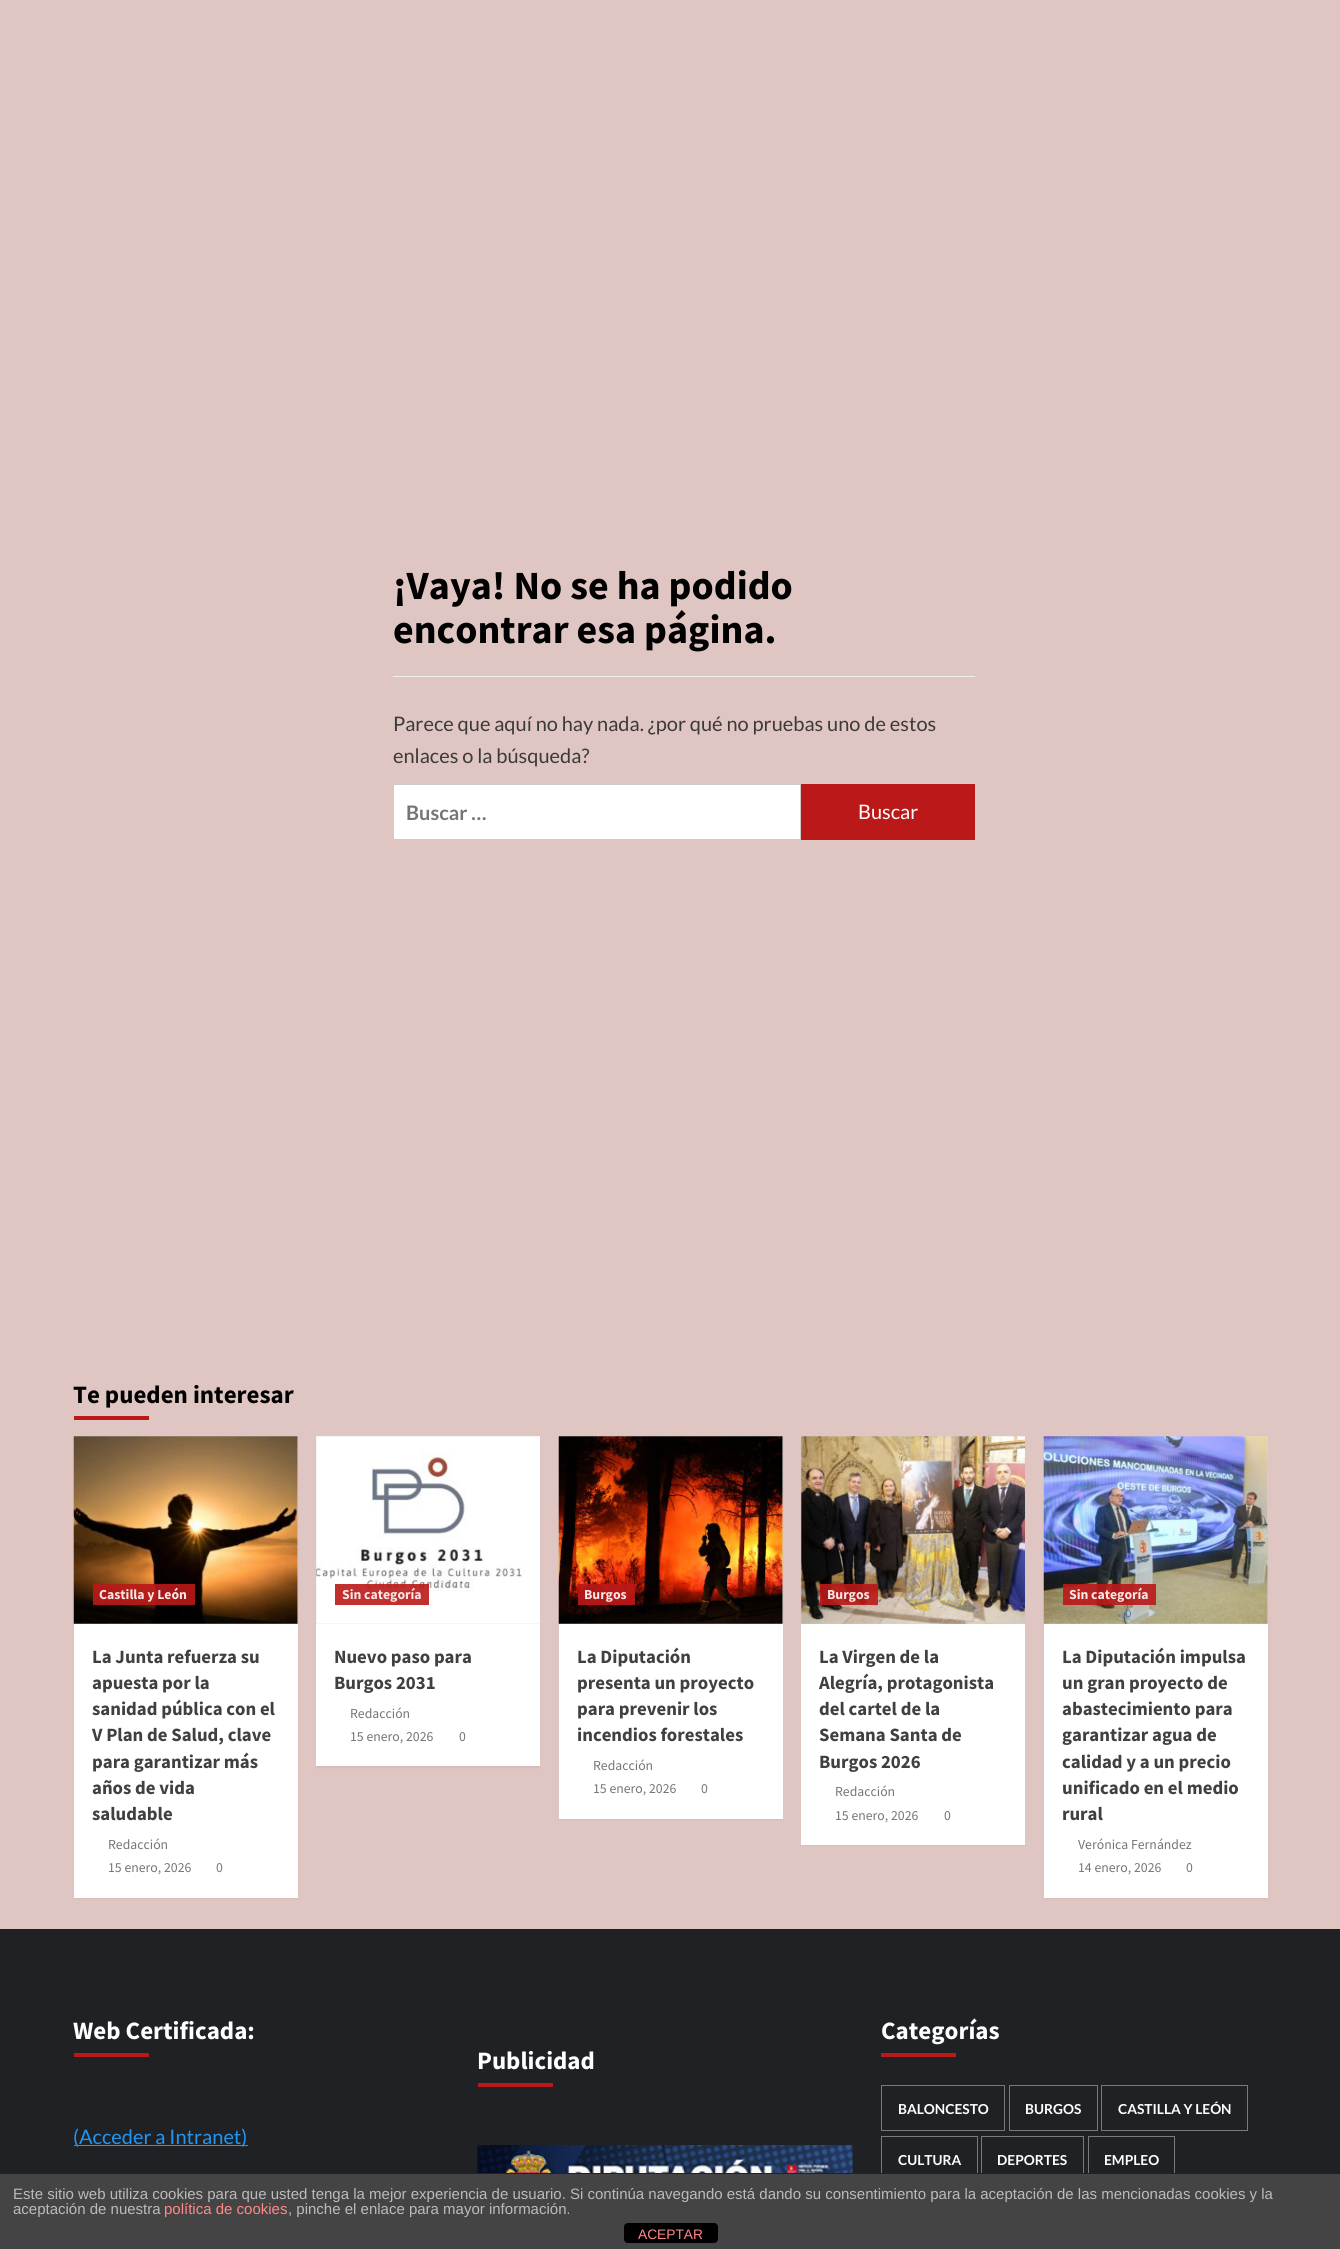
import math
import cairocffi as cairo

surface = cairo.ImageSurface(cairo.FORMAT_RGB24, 1340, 2249)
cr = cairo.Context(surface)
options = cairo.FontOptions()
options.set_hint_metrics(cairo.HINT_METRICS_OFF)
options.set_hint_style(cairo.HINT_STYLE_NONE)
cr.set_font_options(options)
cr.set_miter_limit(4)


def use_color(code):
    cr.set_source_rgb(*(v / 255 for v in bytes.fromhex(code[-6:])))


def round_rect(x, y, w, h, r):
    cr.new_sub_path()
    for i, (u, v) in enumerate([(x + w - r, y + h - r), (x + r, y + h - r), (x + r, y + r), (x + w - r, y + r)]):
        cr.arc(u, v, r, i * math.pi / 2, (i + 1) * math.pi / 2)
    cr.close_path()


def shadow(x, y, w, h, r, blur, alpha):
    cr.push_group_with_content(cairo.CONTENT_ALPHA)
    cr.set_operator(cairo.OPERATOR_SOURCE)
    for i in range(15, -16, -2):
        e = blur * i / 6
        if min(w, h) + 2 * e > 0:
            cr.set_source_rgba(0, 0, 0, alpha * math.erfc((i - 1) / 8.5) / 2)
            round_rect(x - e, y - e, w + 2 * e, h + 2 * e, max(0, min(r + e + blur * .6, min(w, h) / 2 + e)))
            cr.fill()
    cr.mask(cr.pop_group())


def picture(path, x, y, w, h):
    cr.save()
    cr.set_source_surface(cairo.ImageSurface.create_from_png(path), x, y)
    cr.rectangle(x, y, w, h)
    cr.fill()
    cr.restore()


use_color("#e0c6c3")
cr.paint()
use_color("#eeeeee")
cr.rectangle(393, 676, 582, 1)
cr.fill()
cr.select_font_face("Source Sans Pro", cairo.FONT_SLANT_NORMAL, cairo.FONT_WEIGHT_BOLD)
cr.set_font_size(40)
use_color("#000000")
cr.move_to(393, 599)
cr.show_text("¡Vaya! No se ha podido")
cr.move_to(393, 643)
cr.show_text("encontrar esa página.")
cr.select_font_face("Lato")
cr.set_font_size(20)
use_color("#3a3a3a")
cr.move_to(393, 731)
cr.show_text("Parece que aquí no hay nada. ¿por qué no pruebas uno de estos")
cr.move_to(393, 763)
cr.show_text("enlaces o la búsqueda?")
use_color("#ffffff")
cr.rectangle(393.5, 784.5, 407, 55)
cr.fill_preserve()
use_color("#cccccc")
cr.set_line_width(1)
cr.stroke()
cr.select_font_face("Lato", cairo.FONT_SLANT_NORMAL, cairo.FONT_WEIGHT_BOLD)
use_color("#757575")
cr.move_to(406, 820)
cr.show_text("Buscar …")
use_color("#bb1919")
cr.rectangle(801, 784, 174, 56)
cr.fill()
cr.select_font_face("Lato")
use_color("#ffffff")
cr.move_to(858, 819)
cr.show_text("Buscar")
cr.select_font_face("Source Sans Pro", cairo.FONT_SLANT_NORMAL, cairo.FONT_WEIGHT_BOLD)
cr.set_font_size(25)
use_color("#000000")
cr.move_to(73, 1403)
cr.show_text("Te pueden interesar")
use_color("#bb1919")
cr.rectangle(74, 1416, 75, 4)
cr.fill()
use_color("#000000")
shadow(74, 1438, 224, 461, 0, 1, 0.05)
use_color("#ffffff")
cr.rectangle(74, 1624, 224, 274)
cr.fill()
use_color("#d8d8d8")
cr.rectangle(74, 1436, 224, 188)
cr.fill()
picture("img1.png", 73, 1436, 225, 188)
cr.set_source_rgba(0.733, 0.098, 0.098, 0.9)
cr.rectangle(93, 1584, 102, 21)
cr.fill()
cr.set_font_size(13.75)
use_color("#f7e8e8")
cr.move_to(99, 1599)
cr.show_text("Castilla y León")
cr.set_font_size(18.75)
use_color("#404040")
cr.move_to(92, 1663)
cr.show_text("La Junta refuerza su")
cr.move_to(92, 1689)
cr.show_text("apuesta por la")
cr.move_to(92, 1715)
cr.show_text("sanidad pública con el")
cr.move_to(92, 1741)
cr.show_text("V Plan de Salud, clave")
cr.move_to(92, 1768)
cr.show_text("para garantizar más")
cr.move_to(92, 1794)
cr.show_text("años de vida")
cr.move_to(92, 1820)
cr.show_text("saludable")
cr.select_font_face("Source Sans Pro")
cr.set_font_size(13.75)
use_color("#757575")
cr.move_to(108, 1849)
cr.show_text("Redacción")
cr.move_to(108, 1872)
cr.show_text("15 enero, 2026")
cr.move_to(216, 1872)
cr.show_text("0")
use_color("#000000")
shadow(316, 1438, 224, 330, 0, 1, 0.05)
use_color("#ffffff")
cr.rectangle(316, 1624, 224, 142)
cr.fill()
use_color("#d8d8d8")
cr.rectangle(316, 1436, 224, 188)
cr.fill()
picture("img2.png", 316, 1436, 224, 188)
cr.set_source_rgba(0.733, 0.098, 0.098, 0.9)
cr.rectangle(335, 1584, 94, 21)
cr.fill()
cr.select_font_face("Source Sans Pro", cairo.FONT_SLANT_NORMAL, cairo.FONT_WEIGHT_BOLD)
use_color("#f7e8e8")
cr.move_to(342, 1599)
cr.show_text("Sin categoría")
cr.set_font_size(18.75)
use_color("#404040")
cr.move_to(334, 1663)
cr.show_text("Nuevo paso para")
cr.move_to(334, 1689)
cr.show_text("Burgos 2031")
cr.select_font_face("Source Sans Pro")
cr.set_font_size(13.75)
use_color("#757575")
cr.move_to(350, 1718)
cr.show_text("Redacción")
cr.move_to(350, 1741)
cr.show_text("15 enero, 2026")
cr.move_to(459, 1741)
cr.show_text("0")
use_color("#000000")
shadow(559, 1438, 224, 382, 0, 1, 0.05)
use_color("#ffffff")
cr.rectangle(559, 1624, 224, 195)
cr.fill()
use_color("#d8d8d8")
cr.rectangle(559, 1436, 224, 188)
cr.fill()
picture("img3.png", 558, 1436, 225, 188)
cr.set_source_rgba(0.733, 0.098, 0.098, 0.9)
cr.rectangle(578, 1584, 57, 21)
cr.fill()
cr.select_font_face("Source Sans Pro", cairo.FONT_SLANT_NORMAL, cairo.FONT_WEIGHT_BOLD)
use_color("#f7e8e8")
cr.move_to(584, 1599)
cr.show_text("Burgos")
cr.set_font_size(18.75)
use_color("#404040")
cr.move_to(577, 1663)
cr.show_text("La Diputación")
cr.move_to(577, 1689)
cr.show_text("presenta un proyecto")
cr.move_to(577, 1715)
cr.show_text("para prevenir los")
cr.move_to(577, 1741)
cr.show_text("incendios forestales")
cr.select_font_face("Source Sans Pro")
cr.set_font_size(13.75)
use_color("#757575")
cr.move_to(593, 1770)
cr.show_text("Redacción")
cr.move_to(593, 1793)
cr.show_text("15 enero, 2026")
cr.move_to(701, 1793)
cr.show_text("0")
use_color("#000000")
shadow(801, 1438, 224, 408, 0, 1, 0.05)
use_color("#ffffff")
cr.rectangle(801, 1624, 224, 221)
cr.fill()
use_color("#d8d8d8")
cr.rectangle(801, 1436, 224, 188)
cr.fill()
picture("img4.png", 801, 1436, 224, 188)
cr.set_source_rgba(0.733, 0.098, 0.098, 0.9)
cr.rectangle(820, 1584, 58, 21)
cr.fill()
cr.select_font_face("Source Sans Pro", cairo.FONT_SLANT_NORMAL, cairo.FONT_WEIGHT_BOLD)
use_color("#f7e8e8")
cr.move_to(827, 1599)
cr.show_text("Burgos")
cr.set_font_size(18.75)
use_color("#404040")
cr.move_to(819, 1663)
cr.show_text("La Virgen de la")
cr.move_to(819, 1689)
cr.show_text("Alegría, protagonista")
cr.move_to(819, 1715)
cr.show_text("del cartel de la")
cr.move_to(819, 1741)
cr.show_text("Semana Santa de")
cr.move_to(819, 1768)
cr.show_text("Burgos 2026")
cr.select_font_face("Source Sans Pro")
cr.set_font_size(13.75)
use_color("#757575")
cr.move_to(835, 1796)
cr.show_text("Redacción")
cr.move_to(835, 1820)
cr.show_text("15 enero, 2026")
cr.move_to(944, 1820)
cr.show_text("0")
use_color("#000000")
shadow(1044, 1438, 224, 461, 0, 1, 0.05)
use_color("#ffffff")
cr.rectangle(1044, 1624, 224, 274)
cr.fill()
use_color("#d8d8d8")
cr.rectangle(1044, 1436, 224, 188)
cr.fill()
picture("img5.png", 1043, 1436, 225, 188)
cr.set_source_rgba(0.733, 0.098, 0.098, 0.9)
cr.rectangle(1063, 1584, 93, 21)
cr.fill()
cr.select_font_face("Source Sans Pro", cairo.FONT_SLANT_NORMAL, cairo.FONT_WEIGHT_BOLD)
use_color("#f7e8e8")
cr.move_to(1069, 1599)
cr.show_text("Sin categoría")
cr.set_font_size(18.75)
use_color("#404040")
cr.move_to(1062, 1663)
cr.show_text("La Diputación impulsa")
cr.move_to(1062, 1689)
cr.show_text("un gran proyecto de")
cr.move_to(1062, 1715)
cr.show_text("abastecimiento para")
cr.move_to(1062, 1741)
cr.show_text("garantizar agua de")
cr.move_to(1062, 1768)
cr.show_text("calidad y a un precio")
cr.move_to(1062, 1794)
cr.show_text("unificado en el medio")
cr.move_to(1062, 1820)
cr.show_text("rural")
cr.select_font_face("Source Sans Pro")
cr.set_font_size(13.75)
use_color("#757575")
cr.move_to(1078, 1849)
cr.show_text("Verónica Fernández")
cr.move_to(1078, 1872)
cr.show_text("14 enero, 2026")
cr.move_to(1186, 1872)
cr.show_text("0")
use_color("#1f2125")
cr.rectangle(0, 1929, 1340, 244)
cr.fill()
cr.select_font_face("Source Sans Pro", cairo.FONT_SLANT_NORMAL, cairo.FONT_WEIGHT_BOLD)
cr.set_font_size(25)
use_color("#ffffff")
cr.move_to(73, 2039)
cr.show_text("Web Certificada:")
use_color("#bb1919")
cr.rectangle(74, 2053, 75, 4)
cr.fill()
use_color("#2196f3")
cr.rectangle(74, 2145, 174, 1)
cr.fill()
cr.select_font_face("Lato")
cr.set_font_size(20)
cr.move_to(73, 2144)
cr.show_text("(Acceder a Intranet)")
cr.select_font_face("Source Sans Pro", cairo.FONT_SLANT_NORMAL, cairo.FONT_WEIGHT_BOLD)
cr.set_font_size(25)
use_color("#ffffff")
cr.move_to(477, 2069)
cr.show_text("Publicidad")
use_color("#bb1919")
cr.rectangle(478, 2083, 75, 4)
cr.fill()
picture("img6.png", 477, 2145, 376, 28)
use_color("#ffffff")
cr.move_to(881, 2039)
cr.show_text("Categorías")
use_color("#bb1919")
cr.rectangle(881, 2053, 75, 4)
cr.fill()
cr.rectangle(881.5, 2085.5, 123, 45)
use_color("#797a7c")
cr.stroke()
cr.select_font_face("Lato", cairo.FONT_SLANT_NORMAL, cairo.FONT_WEIGHT_BOLD)
cr.set_font_size(13.75)
use_color("#ffffff")
cr.move_to(898, 2114)
cr.show_text("BALONCESTO")
cr.rectangle(1009.5, 2085.5, 88, 45)
use_color("#797a7c")
cr.stroke()
use_color("#ffffff")
cr.move_to(1025, 2114)
cr.show_text("BURGOS")
cr.rectangle(1101.5, 2085.5, 146, 45)
use_color("#797a7c")
cr.stroke()
use_color("#ffffff")
cr.move_to(1118, 2114)
cr.show_text("CASTILLA Y LEÓN")
cr.rectangle(881.5, 2136.5, 96, 46)
use_color("#797a7c")
cr.stroke()
use_color("#ffffff")
cr.move_to(898, 2165)
cr.show_text("CULTURA")
cr.rectangle(981.5, 2136.5, 102, 46)
use_color("#797a7c")
cr.stroke()
use_color("#ffffff")
cr.move_to(997, 2165)
cr.show_text("DEPORTES")
cr.rectangle(1088.5, 2136.5, 86, 46)
use_color("#797a7c")
cr.stroke()
use_color("#ffffff")
cr.move_to(1104, 2165)
cr.show_text("EMPLEO")
use_color("#444444")
cr.rectangle(0, 2174, 1340, 75)
cr.fill()
use_color("#222222")
cr.rectangle(0, 2173, 1340, 1)
cr.fill()
cr.select_font_face("Liberation Sans")
cr.set_font_size(15)
use_color("#bbbbbb")
cr.move_to(13, 2199)
cr.show_text("Este sitio web utiliza cookies para que usted tenga la mejor experiencia de usuario. Si continúa navegando está dando su consentimiento para la aceptación de las mencionadas cookies y la")
cr.move_to(13, 2214)
cr.show_text("aceptación de nuestra")
use_color("#ff8888")
cr.move_to(164, 2214)
cr.show_text("política de cookies")
use_color("#bbbbbb")
cr.move_to(288, 2214)
cr.show_text(", pinche el enlace para mayor información.")
use_color("#000000")
round_rect(624, 2223, 94, 20, 4)
cr.fill()
cr.set_font_size(13.75)
use_color("#ff8888")
cr.move_to(638, 2239)
cr.show_text("ACEPTAR")
surface.write_to_png("result.png")
